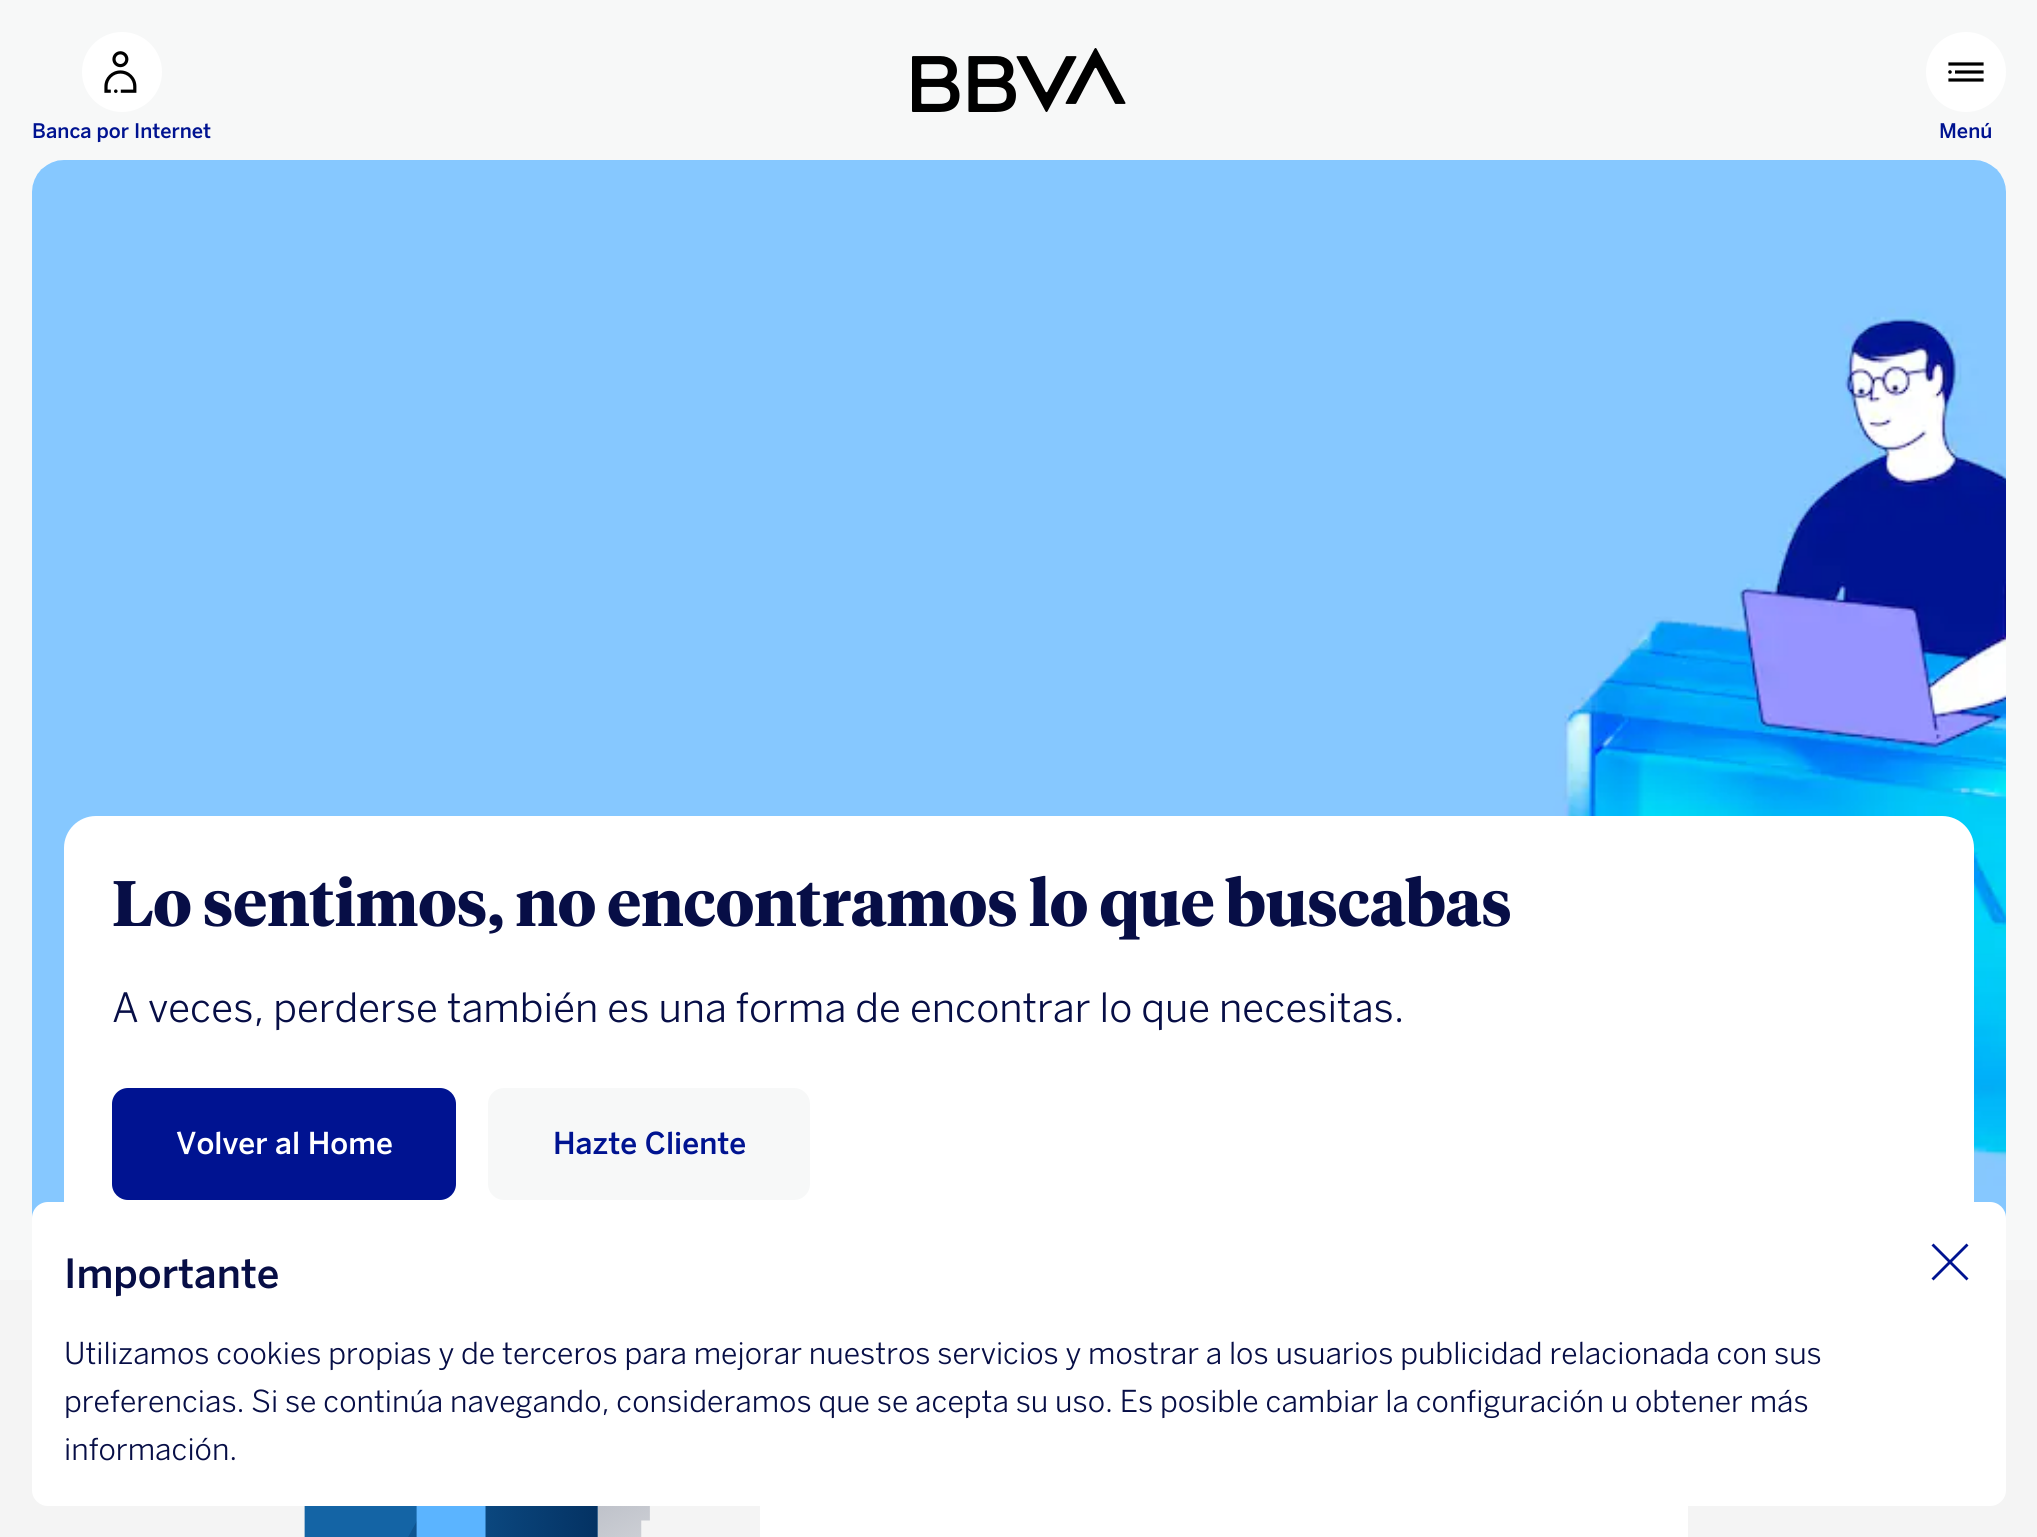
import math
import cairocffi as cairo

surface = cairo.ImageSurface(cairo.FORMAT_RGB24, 2037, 1537)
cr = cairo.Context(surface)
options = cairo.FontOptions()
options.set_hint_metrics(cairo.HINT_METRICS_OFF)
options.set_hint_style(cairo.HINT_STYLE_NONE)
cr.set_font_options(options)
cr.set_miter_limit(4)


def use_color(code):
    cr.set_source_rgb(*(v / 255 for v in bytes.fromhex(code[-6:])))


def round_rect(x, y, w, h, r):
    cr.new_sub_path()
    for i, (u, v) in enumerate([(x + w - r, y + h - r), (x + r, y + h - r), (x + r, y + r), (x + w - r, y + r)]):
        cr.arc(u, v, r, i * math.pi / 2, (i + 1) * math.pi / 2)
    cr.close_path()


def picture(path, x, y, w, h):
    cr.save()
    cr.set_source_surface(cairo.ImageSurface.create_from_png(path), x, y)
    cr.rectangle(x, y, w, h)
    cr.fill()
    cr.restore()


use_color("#f7f8f8")
cr.paint()
picture("img1.png", 912, 48, 214, 64)
use_color("#ffffff")
cr.arc(122, 72, 40, 0, 2 * math.pi)
cr.fill()
picture("img2.png", 104, 51, 33, 42)
cr.select_font_face("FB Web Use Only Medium")
cr.set_font_size(20)
use_color("#001391")
cr.move_to(32, 138)
cr.show_text("Banca por Internet")
use_color("#ffffff")
cr.new_path()
cr.arc(1966, 72, 40, 0, 2 * math.pi)
cr.fill()
picture("img3.png", 1948, 62, 36, 20)
use_color("#001391")
cr.move_to(1939, 138)
cr.show_text("Menú")
use_color("#ffffff")
round_rect(32, 160, 1974, 1120, 32)
cr.fill()
picture("img4.png", 32, 160, 1974, 1058)
round_rect(64, 816, 1910, 432, 32)
cr.fill()
picture("img5.png", 0, 1280, 2037, 257)
round_rect(32, 1202, 1974, 304, 16)
cr.fill()
cr.set_font_size(40)
use_color("#070e46")
cr.move_to(64, 1288)
cr.show_text("Importante")
cr.select_font_face("FB Web Use Only Light")
cr.set_font_size(30)
cr.move_to(64, 1364)
cr.show_text("Utilizamos cookies propias y de terceros para mejorar nuestros servicios y mostrar a los usuarios publicidad relacionada con sus")
cr.move_to(64, 1412)
cr.show_text("preferencias. Si se continúa navegando, consideramos que se acepta su uso. Es posible cambiar la configuración u obtener más")
cr.move_to(64, 1460)
cr.show_text("información.")
use_color("#001391")
cr.new_path()
cr.move_to(1952, 1262)
cr.line_to(1968.5, 1278.5)
cr.line_to(1966.5, 1280.5)
cr.line_to(1950, 1264)
cr.line_to(1933.5, 1280.5)
cr.line_to(1931.5, 1278.5)
cr.line_to(1948, 1262)
cr.line_to(1931.5, 1245.5)
cr.line_to(1933.5, 1243.5)
cr.line_to(1950, 1260)
cr.line_to(1966.5, 1243.5)
cr.line_to(1968.5, 1245.5)
cr.close_path()
cr.fill()
cr.select_font_face("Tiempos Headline", cairo.FONT_SLANT_NORMAL, cairo.FONT_WEIGHT_BOLD)
cr.set_font_size(64)
use_color("#070e46")
cr.move_to(112, 926)
cr.show_text("Lo sentimos, no encontramos lo que buscabas")
cr.select_font_face("FB Web Use Only Light")
cr.set_font_size(40)
cr.move_to(112, 1022)
cr.show_text("A veces, perderse también es una forma de encontrar lo que necesitas.")
gradient = cairo.LinearGradient(-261, 1081, 458, 1207)
gradient.add_color_stop_rgba(0.5, 0.027, 0.055, 0.275, 1)
gradient.add_color_stop_rgba(0.5, 0, 0.075, 0.569, 1)
cr.set_source(gradient)
round_rect(112, 1088, 344, 112, 16)
cr.fill()
cr.select_font_face("FB Web Use Only Medium")
cr.set_font_size(30)
use_color("#ffffff")
cr.move_to(176, 1154)
cr.show_text("Volver al Home")
gradient = cairo.LinearGradient(138, 1084, 813, 1204)
gradient.add_color_stop_rgba(0.5, 1, 1, 1, 1)
gradient.add_color_stop_rgba(0.5, 0.969, 0.973, 0.973, 1)
cr.set_source(gradient)
round_rect(488, 1088, 322, 112, 16)
cr.fill()
use_color("#001391")
cr.move_to(553, 1154)
cr.show_text("Hazte Cliente")
surface.write_to_png("result.png")
